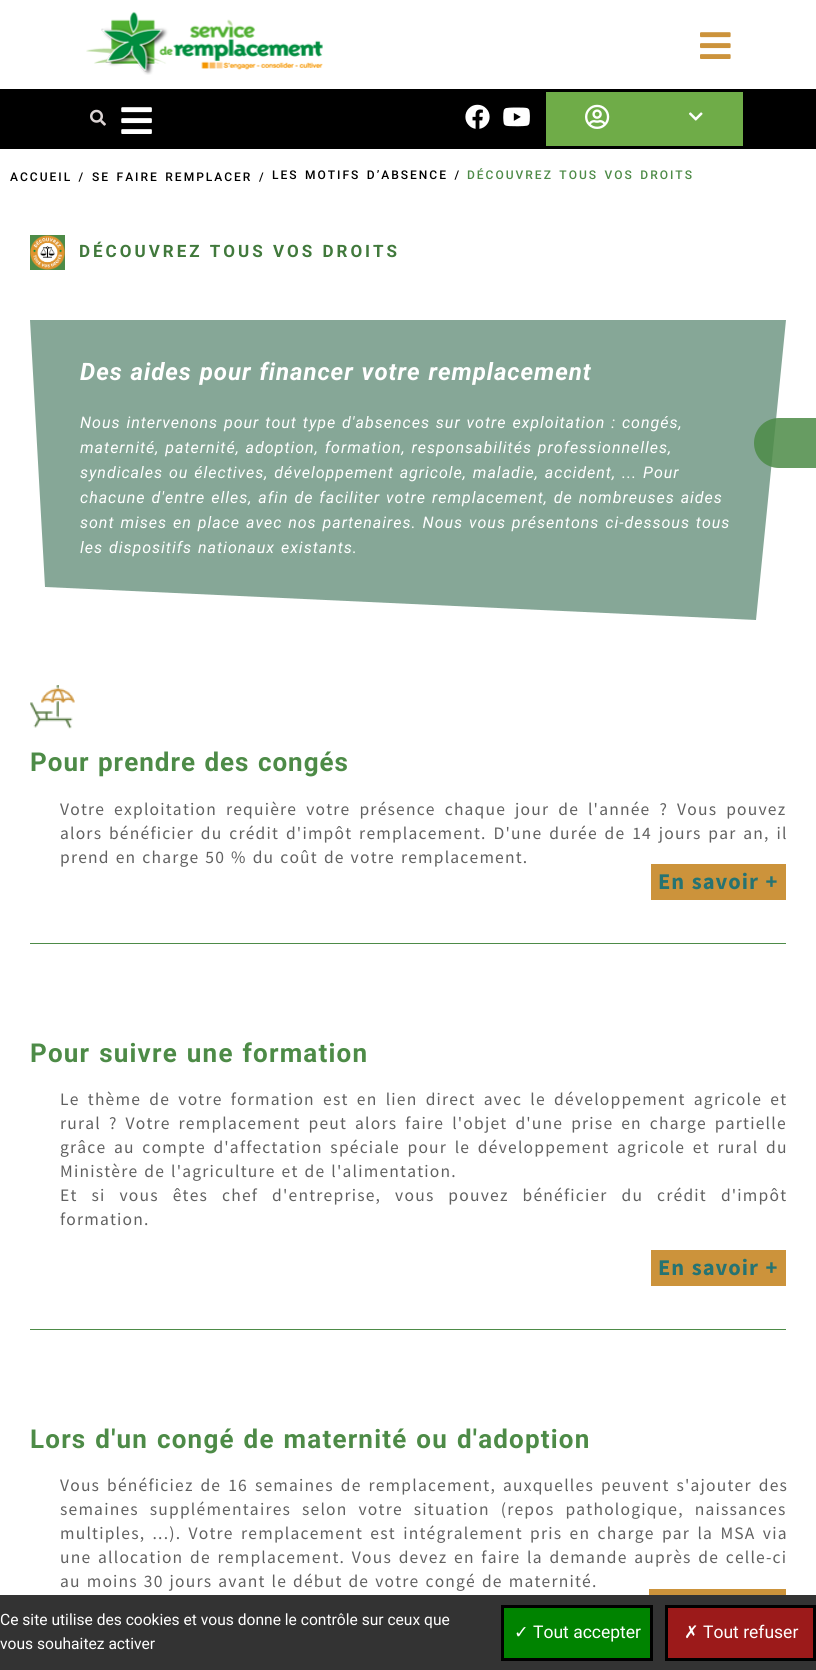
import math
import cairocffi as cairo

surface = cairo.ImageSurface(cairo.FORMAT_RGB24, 816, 1670)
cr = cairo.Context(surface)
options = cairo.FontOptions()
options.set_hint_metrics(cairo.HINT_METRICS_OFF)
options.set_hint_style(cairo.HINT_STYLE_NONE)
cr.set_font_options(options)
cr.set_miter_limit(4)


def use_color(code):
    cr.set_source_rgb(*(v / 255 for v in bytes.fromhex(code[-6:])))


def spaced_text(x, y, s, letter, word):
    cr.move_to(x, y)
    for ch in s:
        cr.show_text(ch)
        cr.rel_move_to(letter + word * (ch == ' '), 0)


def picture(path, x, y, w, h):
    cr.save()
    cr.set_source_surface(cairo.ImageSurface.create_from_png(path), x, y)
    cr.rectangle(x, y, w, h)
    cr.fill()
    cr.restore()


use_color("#ffffff")
cr.paint()
picture("img1.png", 86, 11, 237, 64)
picture("img2.png", 700, 32, 31, 27)
use_color("#000000")
cr.rectangle(0, 89, 816, 60)
cr.fill()
picture("img3.png", 90, 109, 16, 17)
picture("img4.png", 121, 107, 31, 27)
picture("img5.png", 465, 104, 25, 25)
picture("img6.png", 503, 107, 27, 20)
use_color("#6fac48")
cr.rectangle(546, 92, 197, 54)
cr.fill()
picture("img7.png", 585, 104, 25, 25)
picture("img8.png", 689, 112, 14, 9)
cr.select_font_face("Roboto Medium")
cr.set_font_size(12)
use_color("#000000")
spaced_text(10, 181, "ACCUEIL /", 2, 1.5)
spaced_text(92, 181, "SE FAIRE REMPLACER /", 2, 1.5)
spaced_text(272, 179, "LES MOTIFS D’ABSENCE /", 2, 1.5)
use_color("#4d8b47")
spaced_text(467, 179, "DÉCOUVREZ TOUS VOS DROITS", 2, 1.5)
picture("img9.png", 30, 235, 35, 35)
cr.select_font_face("Roboto", cairo.FONT_SLANT_NORMAL, cairo.FONT_WEIGHT_BOLD)
cr.set_font_size(17)
use_color("#41793c")
spaced_text(79, 257, "DÉCOUVREZ TOUS VOS DROITS", 3, 0)
use_color("#86a797")
cr.new_path()
cr.move_to(30, 320)
cr.line_to(786, 320)
cr.line_to(756, 620)
cr.line_to(45, 587)
cr.close_path()
cr.fill()
cr.select_font_face("Roboto", cairo.FONT_SLANT_ITALIC, cairo.FONT_WEIGHT_BOLD)
cr.set_font_size(24)
use_color("#ffffff")
spaced_text(80, 380, "Des aides pour financer votre remplacement", 1, 1)
cr.select_font_face("Roboto", cairo.FONT_SLANT_ITALIC)
cr.set_font_size(16)
spaced_text(80, 428, "Nous intervenons pour tout type d'absences sur votre exploitation : congés,", 1, 1)
spaced_text(80, 453, "maternité, paternité, adoption, formation, responsabilités professionnelles,", 1, 1)
spaced_text(80, 478, "syndicales ou électives, développement agricole, maladie, accident, ... Pour", 1, 1)
spaced_text(80, 503, "chacune d'entre elles, afin de faciliter votre remplacement, de nombreuses aides", 1, 1)
spaced_text(80, 528, "sont mises en place avec nos partenaires. Nous vous présentons ci-dessous tous", 1, 1)
spaced_text(80, 553, "les dispositifs nationaux existants.", 1, 1)
picture("img10.png", 30, 685, 45, 44)
cr.select_font_face("Roboto", cairo.FONT_SLANT_NORMAL, cairo.FONT_WEIGHT_BOLD)
cr.set_font_size(26)
use_color("#4d8b47")
spaced_text(30, 771, "Pour prendre des congés", 1, 1)
cr.select_font_face("Source Sans Pro")
cr.set_font_size(17.5)
use_color("#616161")
spaced_text(60, 815, "Votre exploitation requière votre présence chaque jour de l'année ? Vous pouvez", 1.2, 4.25)
spaced_text(60, 839, "alors bénéficier du crédit d'impôt remplacement. D'une durée de 14 jours par an, il", 1.2, 2.1)
spaced_text(60, 863, "prend en charge 50 % du coût de votre remplacement.", 1.2, 1.25)
use_color("#cc933b")
cr.rectangle(651, 864, 135, 36)
cr.fill()
cr.select_font_face("Source Sans Pro", cairo.FONT_SLANT_NORMAL, cairo.FONT_WEIGHT_BOLD)
cr.set_font_size(22.5)
use_color("#267372")
spaced_text(658, 889, "En savoir +", 1, 1)
use_color("#4d8b47")
cr.rectangle(30, 943, 756, 1)
cr.fill()
cr.select_font_face("Roboto", cairo.FONT_SLANT_NORMAL, cairo.FONT_WEIGHT_BOLD)
cr.set_font_size(26)
spaced_text(30, 1062, "Pour suivre une formation", 1.2, 1.25)
cr.select_font_face("Source Sans Pro")
cr.set_font_size(17.5)
use_color("#616161")
spaced_text(60, 1105, "Le thème de votre formation est en lien direct avec le développement agricole et", 1.2, 3.5)
spaced_text(60, 1129, "rural ? Votre remplacement peut alors faire l'objet d'une prise en charge partielle", 1.2, 3.25)
spaced_text(60, 1153, "grâce au compte d'affectation spéciale pour le développement agricole et rural du", 1.2, 2.9)
spaced_text(60, 1177, "Ministère de l'agriculture et de l'alimentation.", 1.2, 1.25)
spaced_text(60, 1201, "Et si vous êtes chef d'entreprise, vous pouvez bénéficier du crédit d'impôt", 1.2, 9.25)
spaced_text(60, 1225, "formation.", 1.2, 0)
use_color("#cc933b")
cr.rectangle(651, 1250, 135, 36)
cr.fill()
cr.select_font_face("Source Sans Pro", cairo.FONT_SLANT_NORMAL, cairo.FONT_WEIGHT_BOLD)
cr.set_font_size(22.5)
use_color("#267372")
spaced_text(658, 1275, "En savoir +", 1, 1)
use_color("#4d8b47")
cr.rectangle(30, 1329, 756, 1)
cr.fill()
cr.select_font_face("Roboto", cairo.FONT_SLANT_NORMAL, cairo.FONT_WEIGHT_BOLD)
cr.set_font_size(26)
spaced_text(30, 1448, "Lors d'un congé de maternité ou d'adoption", 1.2, 1.25)
cr.select_font_face("Source Sans Pro")
cr.set_font_size(17.5)
use_color("#616161")
spaced_text(60, 1491, "Vous bénéficiez de 16 semaines de remplacement, auxquelles peuvent s'ajouter des", 1.2, 2.25)
spaced_text(60, 1515, "semaines supplémentaires selon votre situation (repos pathologique, naissances", 1.2, 6.25)
spaced_text(60, 1539, "multiples, ...). Votre remplacement est intégralement pris en charge par la MSA via", 1.2, 2.6)
spaced_text(60, 1563, "une allocation de remplacement. Vous devez en faire la demande auprès de celle-ci", 1.2, 2)
spaced_text(60, 1587, "au moins 30 jours avant le début de votre congé de maternité.", 1.2, 1.25)
use_color("#cc933b")
cr.rectangle(649, 1589, 137, 6)
cr.fill()
cr.set_source_rgba(0.302, 0.545, 0.278, 0.85)
cr.new_path()
cr.move_to(779, 418)
cr.line_to(816, 418)
cr.line_to(816, 468)
cr.line_to(779, 468)
cr.curve_to(765, 468, 754, 457, 754, 443)
cr.curve_to(754, 429, 765, 418, 779, 418)
cr.close_path()
cr.fill()
use_color("#333333")
cr.rectangle(0, 1595, 816, 75)
cr.fill()
cr.select_font_face("Roboto")
cr.set_font_size(15.6)
use_color("#ffffff")
cr.move_to(0, 1625)
cr.show_text("Ce site utilise des cookies et vous donne le contrôle sur ceux que")
cr.move_to(0, 1649)
cr.show_text("vous souhaitez activer")
use_color("#008300")
cr.rectangle(502.5, 1606.5, 149, 53)
cr.fill_preserve()
use_color("#000000")
cr.set_line_width(3)
cr.stroke()
cr.select_font_face("DejaVu Sans")
cr.set_font_size(17.5)
use_color("#ffffff")
cr.move_to(514, 1638)
cr.show_text("✓")
cr.select_font_face("Roboto")
cr.move_to(533, 1638)
cr.show_text("Tout accepter")
use_color("#9c1a1a")
cr.rectangle(666.5, 1606.5, 148, 53)
cr.fill_preserve()
use_color("#000000")
cr.stroke()
cr.select_font_face("DejaVu Sans")
use_color("#ffffff")
cr.move_to(684, 1638)
cr.show_text("✗")
cr.select_font_face("Roboto")
cr.move_to(703, 1638)
cr.show_text("Tout refuser")
surface.write_to_png("result.png")
